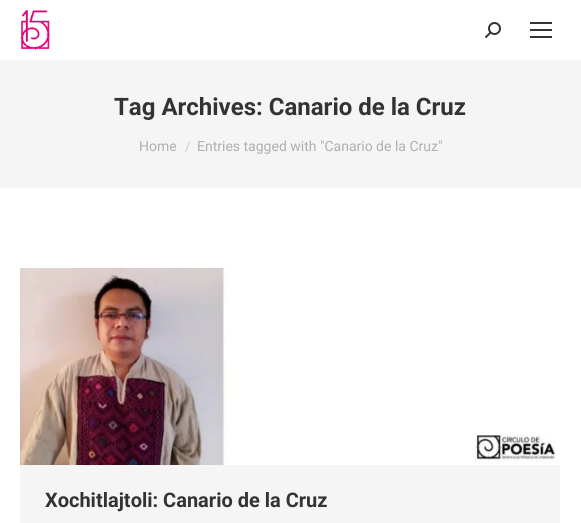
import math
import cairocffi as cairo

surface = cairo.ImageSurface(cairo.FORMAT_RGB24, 581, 523)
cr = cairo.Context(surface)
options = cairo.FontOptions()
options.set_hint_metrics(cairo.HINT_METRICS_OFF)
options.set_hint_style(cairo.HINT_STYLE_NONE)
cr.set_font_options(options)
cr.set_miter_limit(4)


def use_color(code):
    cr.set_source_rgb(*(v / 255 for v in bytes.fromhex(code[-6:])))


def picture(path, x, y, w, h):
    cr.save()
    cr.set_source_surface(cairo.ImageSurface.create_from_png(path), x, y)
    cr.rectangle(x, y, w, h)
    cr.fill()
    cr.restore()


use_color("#ffffff")
cr.paint()
picture("img1.png", 20, 10, 30, 40)
picture("img2.png", 485, 22, 16, 16)
use_color("#333333")
cr.rectangle(530, 22, 22, 2)
cr.fill()
cr.rectangle(530, 29, 22, 2)
cr.fill()
cr.rectangle(530, 36, 22, 2)
cr.fill()
use_color("#f5f5f5")
cr.rectangle(0, 60, 581, 128)
cr.fill()
cr.select_font_face("Roboto", cairo.FONT_SLANT_NORMAL, cairo.FONT_WEIGHT_BOLD)
cr.set_font_size(24)
use_color("#333333")
cr.move_to(114, 115)
cr.show_text("Tag Archives: Canario de la Cruz")
cr.select_font_face("Roboto")
cr.set_font_size(14)
use_color("#adafb3")
cr.move_to(139, 151)
cr.show_text("Home")
use_color("#d1d2d4")
cr.move_to(185, 151)
cr.show_text("/")
use_color("#adafb3")
cr.move_to(197, 151)
cr.show_text("Entries tagged with \"Canario de la Cruz\"")
use_color("#f5f5f5")
cr.rectangle(20, 465, 540, 58)
cr.fill()
picture("img3.png", 20, 268, 540, 197)
cr.select_font_face("Roboto", cairo.FONT_SLANT_NORMAL, cairo.FONT_WEIGHT_BOLD)
cr.set_font_size(20)
use_color("#333333")
cr.move_to(45, 507)
cr.show_text("Xochitlajtoli: Canario de la Cruz")
surface.write_to_png("result.png")
